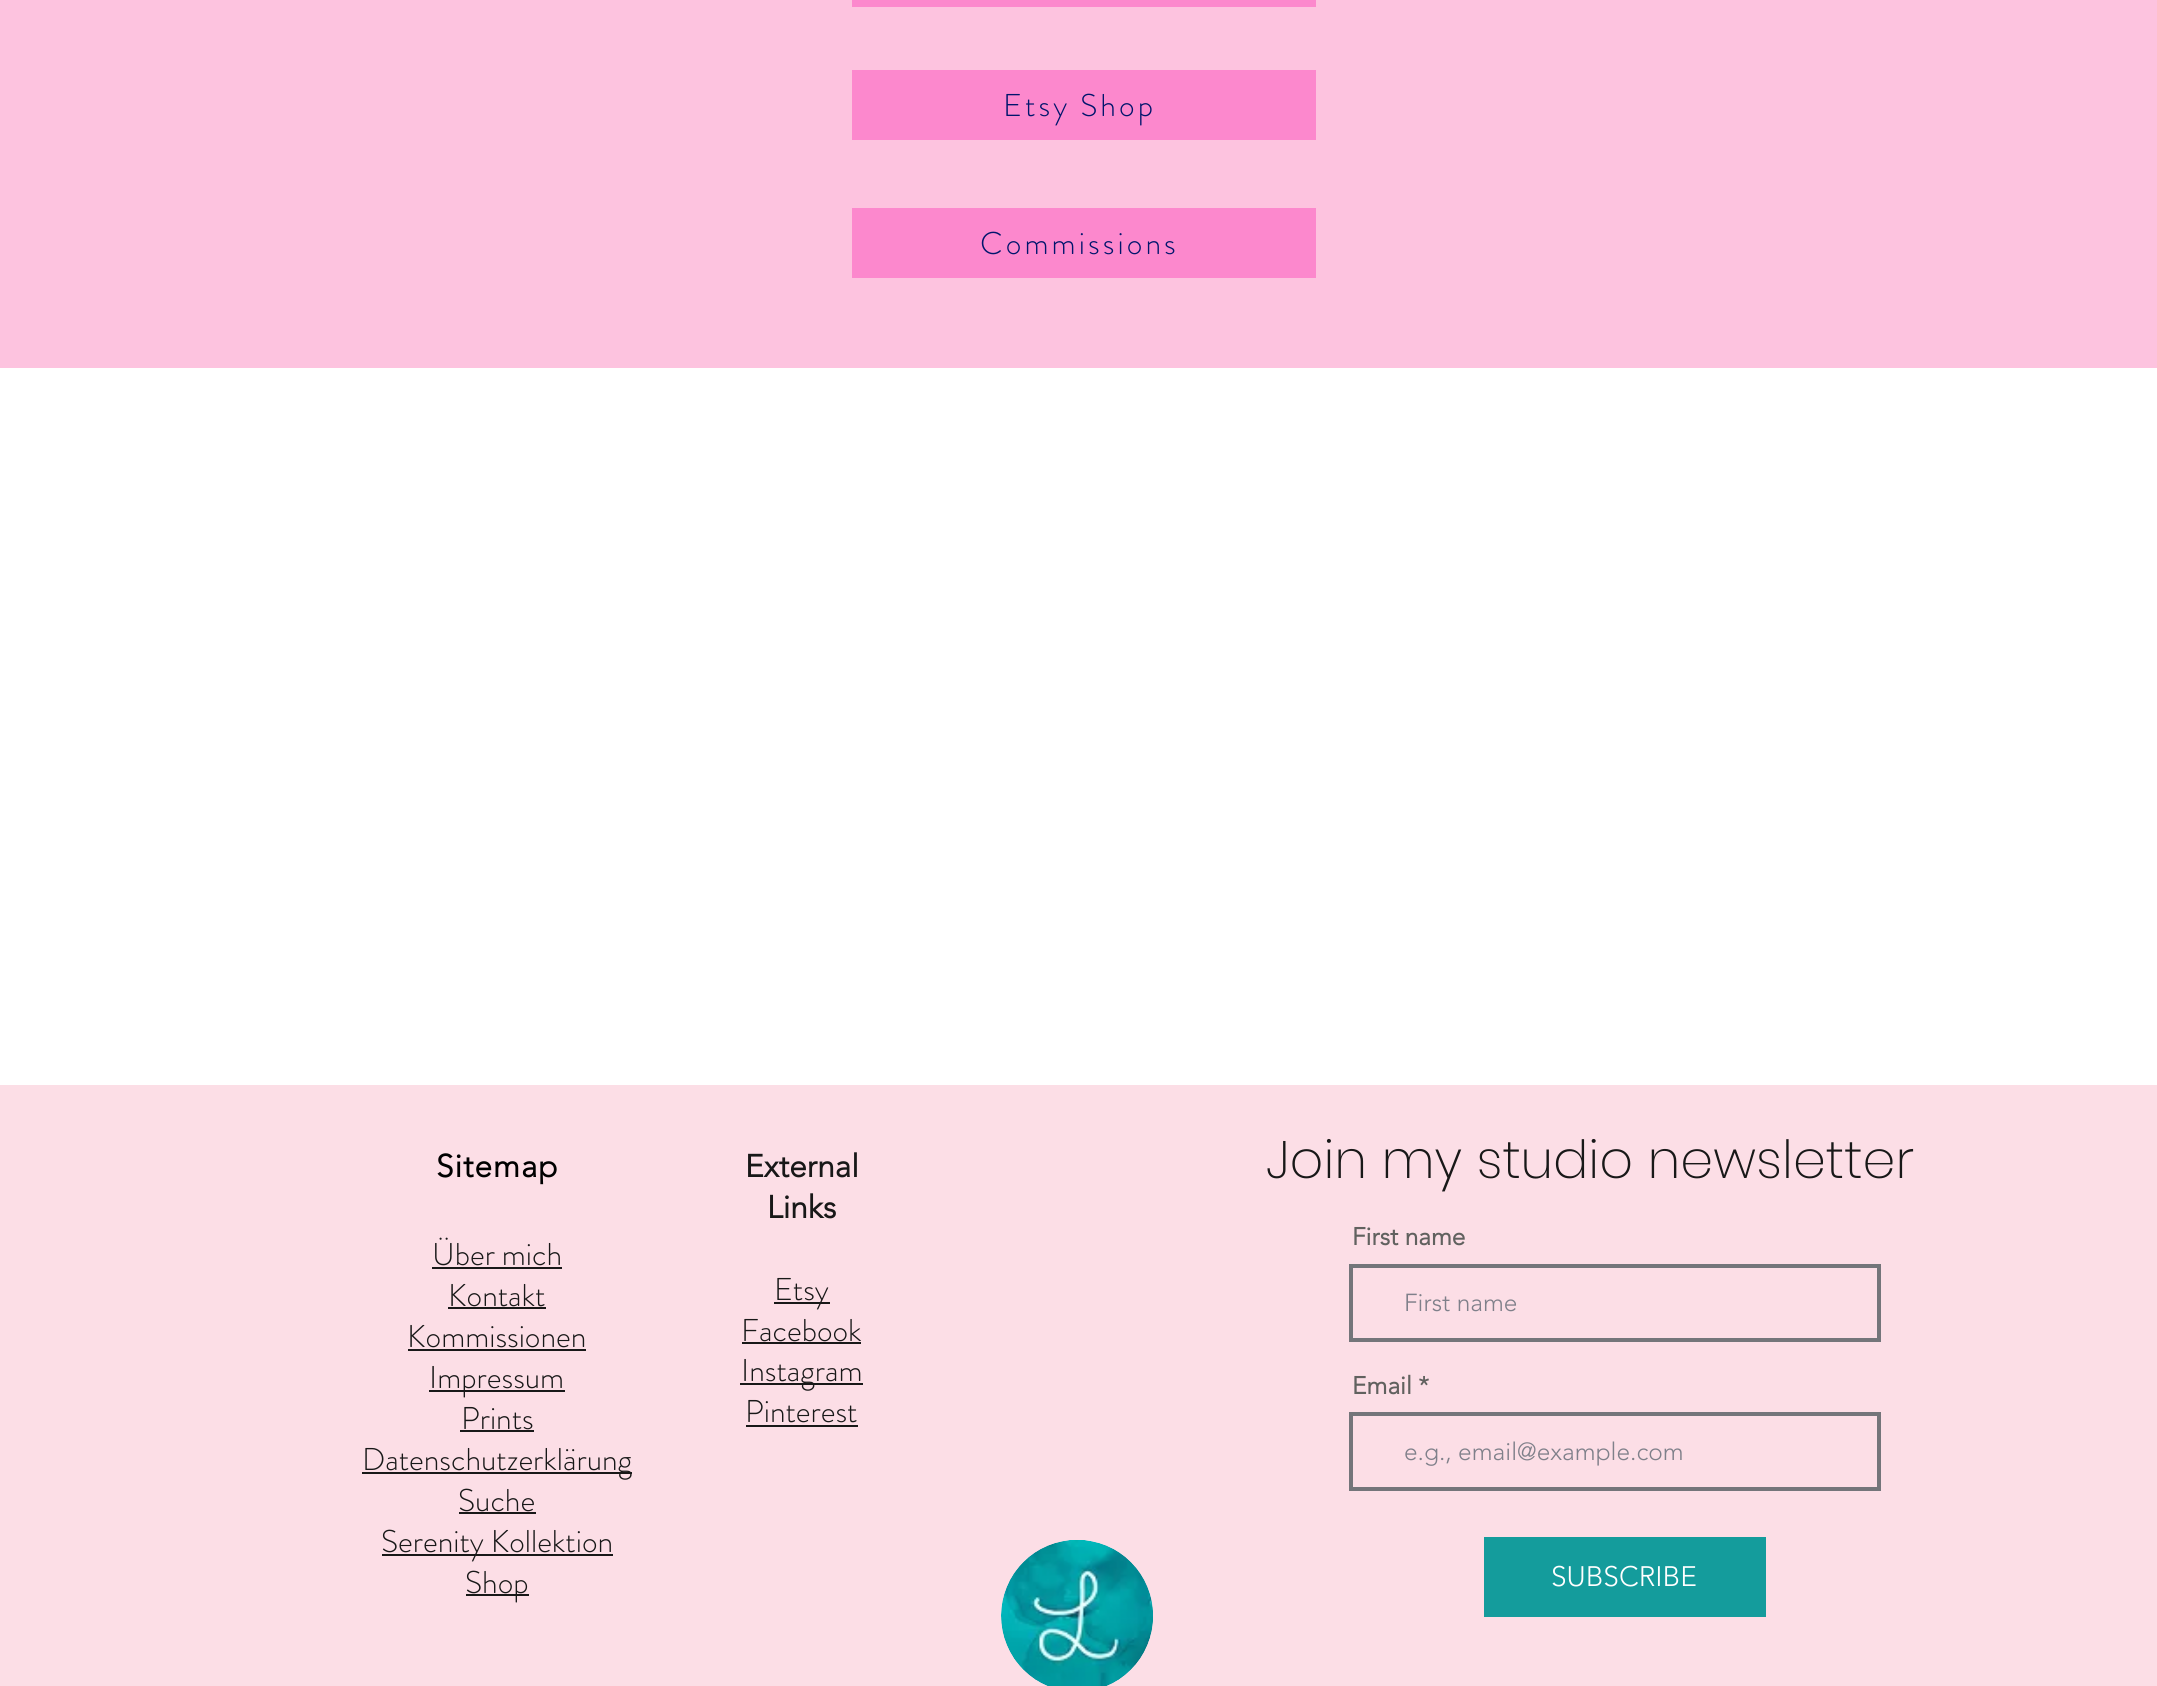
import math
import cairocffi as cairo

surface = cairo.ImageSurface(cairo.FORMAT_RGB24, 2157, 1686)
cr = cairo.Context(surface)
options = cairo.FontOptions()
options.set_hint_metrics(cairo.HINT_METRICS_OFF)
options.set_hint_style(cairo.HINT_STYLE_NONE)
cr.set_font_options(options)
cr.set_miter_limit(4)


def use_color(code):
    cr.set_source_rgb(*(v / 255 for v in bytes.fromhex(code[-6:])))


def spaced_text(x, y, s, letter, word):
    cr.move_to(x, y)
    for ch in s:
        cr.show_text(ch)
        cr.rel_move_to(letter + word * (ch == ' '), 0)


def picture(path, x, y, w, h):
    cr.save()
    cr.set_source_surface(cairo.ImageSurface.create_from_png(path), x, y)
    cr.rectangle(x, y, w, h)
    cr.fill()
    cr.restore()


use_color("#fdc3df")
cr.paint()
use_color("#fc88cd")
cr.rectangle(852, 0, 464, 7)
cr.fill()
cr.rectangle(852, 70, 464, 70)
cr.fill()
cr.select_font_face("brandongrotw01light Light")
cr.set_font_size(31.5)
use_color("#00156c")
spaced_text(1003, 116, "Etsy Shop", 3.1, 0)
use_color("#fc88cd")
cr.rectangle(852, 208, 464, 70)
cr.fill()
use_color("#00156c")
spaced_text(980, 254, "Commissions", 3.1, 0)
use_color("#fcdee6")
cr.rectangle(0, 1085, 2157, 601)
cr.fill()
use_color("#ffffff")
cr.rectangle(0, 368, 2157, 717)
cr.fill()
cr.select_font_face("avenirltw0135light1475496", cairo.FONT_SLANT_NORMAL, cairo.FONT_WEIGHT_BOLD)
use_color("#000000")
spaced_text(436, 1177, "Sitemap", 1, 0)
cr.select_font_face("brandongrotw01light Light")
use_color("#181818")
cr.move_to(432, 1265)
cr.show_text("Über mich")
cr.rectangle(432, 1267, 130, 2)
cr.fill()
cr.move_to(448, 1306)
cr.show_text("Kontakt")
cr.rectangle(448, 1307, 98, 2)
cr.fill()
cr.move_to(407, 1347)
cr.show_text("Kommissionen")
cr.rectangle(408, 1349, 178, 2)
cr.fill()
cr.rectangle(429, 1390, 136, 2)
cr.fill()
cr.move_to(429, 1388)
cr.show_text("Impressum")
cr.move_to(461, 1429)
cr.show_text("Prints")
cr.rectangle(460, 1430, 74, 2)
cr.fill()
cr.rectangle(362, 1472, 270, 2)
cr.fill()
cr.move_to(362, 1470)
cr.show_text("Datenschutzerklärung")
cr.move_to(458, 1511)
cr.show_text("Suche")
cr.rectangle(459, 1512, 77, 2)
cr.fill()
cr.rectangle(382, 1554, 231, 2)
cr.fill()
cr.move_to(381, 1552)
cr.show_text("Serenity Kollektion")
cr.rectangle(466, 1594, 63, 2)
cr.fill()
cr.move_to(465, 1593)
cr.show_text("Shop")
cr.select_font_face("avenirltw0135light1475496", cairo.FONT_SLANT_NORMAL, cairo.FONT_WEIGHT_BOLD)
cr.move_to(745, 1177)
cr.show_text("External")
cr.move_to(767, 1218)
cr.show_text("Links")
cr.rectangle(774, 1302, 56, 2)
cr.fill()
cr.select_font_face("brandongrotw01light Light")
cr.move_to(774, 1300)
cr.show_text("Etsy")
cr.move_to(741, 1341)
cr.show_text("Facebook")
cr.rectangle(742, 1342, 119, 2)
cr.fill()
cr.rectangle(740, 1383, 123, 2)
cr.fill()
cr.move_to(741, 1381)
cr.show_text("Instagram")
cr.move_to(745, 1422)
cr.show_text("Pinterest")
cr.rectangle(746, 1425, 112, 2)
cr.fill()
picture("img1.png", 1001, 1540, 152, 146)
cr.select_font_face("Poppins ExtraLight")
cr.set_font_size(52.5)
cr.move_to(1266, 1178)
cr.show_text("Join my studio newsletter")
cr.select_font_face("avenirltw0135light1475496", cairo.FONT_SLANT_NORMAL, cairo.FONT_WEIGHT_BOLD)
cr.set_font_size(24.5)
use_color("#61615f")
cr.move_to(1352, 1245)
cr.show_text("First name")
cr.rectangle(1351, 1266, 528, 74)
use_color("#74757a")
cr.set_line_width(4)
cr.stroke()
cr.select_font_face("avenirltw0135light1475496 Light")
use_color("#7f808a")
cr.move_to(1404, 1311)
cr.show_text("First name")
cr.select_font_face("avenirltw0135light1475496", cairo.FONT_SLANT_NORMAL, cairo.FONT_WEIGHT_BOLD)
use_color("#61615f")
cr.move_to(1352, 1394)
cr.show_text("Email *")
cr.rectangle(1351, 1414, 528, 75)
use_color("#74757a")
cr.stroke()
cr.select_font_face("avenirltw0135light1475496 Light")
use_color("#7f808a")
cr.move_to(1404, 1460)
cr.show_text("e.g., email@example.com")
use_color("#149c9c")
cr.rectangle(1484, 1537, 282, 80)
cr.fill()
cr.set_font_size(28)
use_color("#ffffff")
cr.move_to(1551, 1586)
cr.show_text("SUBSCRIBE")
surface.write_to_png("result.png")
